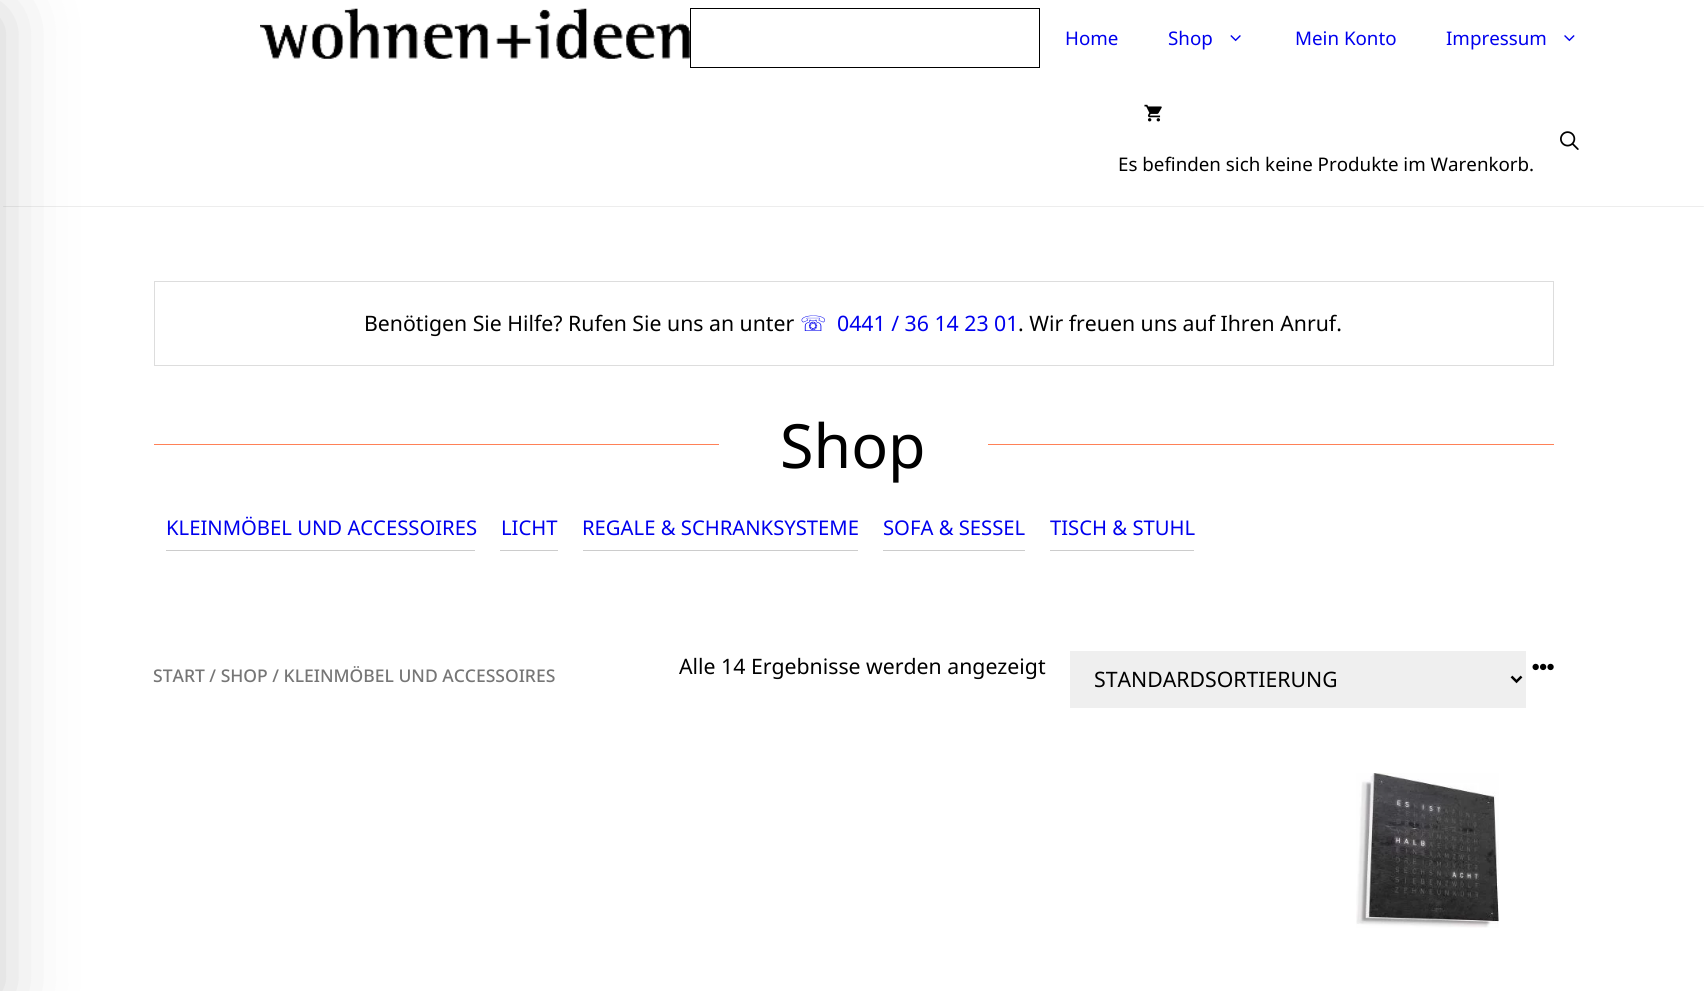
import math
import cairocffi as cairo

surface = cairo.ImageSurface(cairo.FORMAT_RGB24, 1706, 991)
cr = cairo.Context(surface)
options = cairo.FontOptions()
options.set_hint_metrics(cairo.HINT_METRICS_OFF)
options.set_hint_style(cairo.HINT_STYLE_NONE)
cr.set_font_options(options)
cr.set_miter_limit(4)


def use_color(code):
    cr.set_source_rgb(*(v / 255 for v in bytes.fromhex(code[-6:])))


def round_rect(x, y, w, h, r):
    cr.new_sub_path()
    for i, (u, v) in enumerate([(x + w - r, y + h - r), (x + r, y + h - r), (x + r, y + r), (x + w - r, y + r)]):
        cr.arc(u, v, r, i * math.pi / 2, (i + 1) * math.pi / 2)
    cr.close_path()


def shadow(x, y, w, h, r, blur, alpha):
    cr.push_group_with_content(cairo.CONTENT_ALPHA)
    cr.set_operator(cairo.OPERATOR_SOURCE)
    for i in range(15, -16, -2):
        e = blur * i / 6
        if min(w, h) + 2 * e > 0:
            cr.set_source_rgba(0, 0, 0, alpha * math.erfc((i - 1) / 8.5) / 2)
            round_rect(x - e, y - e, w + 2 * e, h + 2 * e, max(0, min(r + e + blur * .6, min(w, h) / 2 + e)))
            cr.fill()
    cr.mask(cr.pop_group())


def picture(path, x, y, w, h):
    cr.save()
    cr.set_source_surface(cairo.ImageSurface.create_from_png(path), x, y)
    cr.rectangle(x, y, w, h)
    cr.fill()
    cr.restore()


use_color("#ffffff")
cr.paint()
use_color("#000000")
shadow(-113, 13, 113, 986, 0, 37.5, 0.2)
cr.save()
cr.rectangle(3, 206, 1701, 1)
cr.clip()
shadow(3, 5, 1701, 201, 0, 1, 0.2)
cr.restore()
picture("img1.png", 260, 8, 430, 51)
cr.rectangle(690.5, 8.5, 349, 59)
use_color("#000000")
cr.set_line_width(1)
cr.stroke()
cr.select_font_face("Noto Sans")
cr.set_font_size(18.75)
use_color("#0000ee")
cr.move_to(1065, 45)
cr.show_text("Home")
cr.move_to(1168, 45)
cr.show_text("Shop")
picture("img2.png", 1230, 35, 11, 7)
cr.move_to(1295, 45)
cr.show_text("Mein Konto")
cr.move_to(1446, 45)
cr.show_text("Impressum")
picture("img3.png", 1564, 35, 11, 7)
picture("img4.png", 1560, 131, 19, 19)
picture("img5.png", 1144, 104, 18, 18)
use_color("#000000")
cr.move_to(1118, 171)
cr.show_text("Es befinden sich keine Produkte im Warenkorb.")
cr.rectangle(154.5, 281.5, 1399, 84)
use_color("#dddddd")
cr.stroke()
cr.set_font_size(21.25)
use_color("#000000")
cr.move_to(364, 331)
cr.show_text("Benötigen Sie Hilfe? Rufen Sie uns an unter")
cr.select_font_face("DejaVu Sans")
use_color("#0000ee")
cr.move_to(800, 331)
cr.show_text("☏")
cr.select_font_face("Noto Sans")
cr.move_to(837, 331)
cr.show_text("0441 / 36 14 23 01")
use_color("#000000")
cr.move_to(1018, 331)
cr.show_text(". Wir freuen uns auf Ihren Anruf.")
use_color("#ff8157")
cr.rectangle(154, 444, 565, 1)
cr.fill()
cr.set_font_size(61)
use_color("#000000")
cr.move_to(780, 468)
cr.show_text("Shop")
use_color("#ff8157")
cr.rectangle(988, 444, 566, 1)
cr.fill()
use_color("#cccccc")
cr.rectangle(166, 550, 309, 1)
cr.fill()
cr.set_font_size(20.25)
use_color("#0000ee")
cr.move_to(166, 535)
cr.show_text("KLEINMÖBEL UND ACCESSOIRES")
use_color("#cccccc")
cr.rectangle(500, 550, 58, 1)
cr.fill()
use_color("#0000ee")
cr.move_to(501, 535)
cr.show_text("LICHT")
use_color("#cccccc")
cr.rectangle(583, 550, 275, 1)
cr.fill()
use_color("#0000ee")
cr.move_to(582, 535)
cr.show_text("REGALE & SCHRANKSYSTEME")
use_color("#cccccc")
cr.rectangle(883, 550, 142, 1)
cr.fill()
use_color("#0000ee")
cr.move_to(883, 535)
cr.show_text("SOFA & SESSEL")
use_color("#cccccc")
cr.rectangle(1050, 550, 144, 1)
cr.fill()
use_color("#0000ee")
cr.move_to(1050, 535)
cr.show_text("TISCH & STUHL")
cr.select_font_face("Noto Sans Medium")
cr.set_font_size(17.5)
use_color("#767676")
cr.move_to(153, 682)
cr.show_text("START / SHOP / KLEINMÖBEL UND ACCESSOIRES")
cr.select_font_face("Noto Sans")
cr.set_font_size(21.25)
use_color("#000000")
cr.move_to(679, 674)
cr.show_text("Alle 14 Ergebnisse werden angezeigt")
picture("img6.png", 1532, 663, 22, 8)
use_color("#efefef")
cr.rectangle(1070, 651, 456, 57)
cr.fill()
cr.new_path()
cr.move_to(1511.5, 676.5)
cr.line_to(1516.5, 681.5)
cr.line_to(1521.5, 676.5)
use_color("#000000")
cr.set_line_width(2.5)
cr.stroke()
cr.move_to(1094, 687)
cr.show_text("STANDARDSORTIERUNG")
picture("img7.png", 1356, 773, 143, 155)
surface.write_to_png("result.png")
